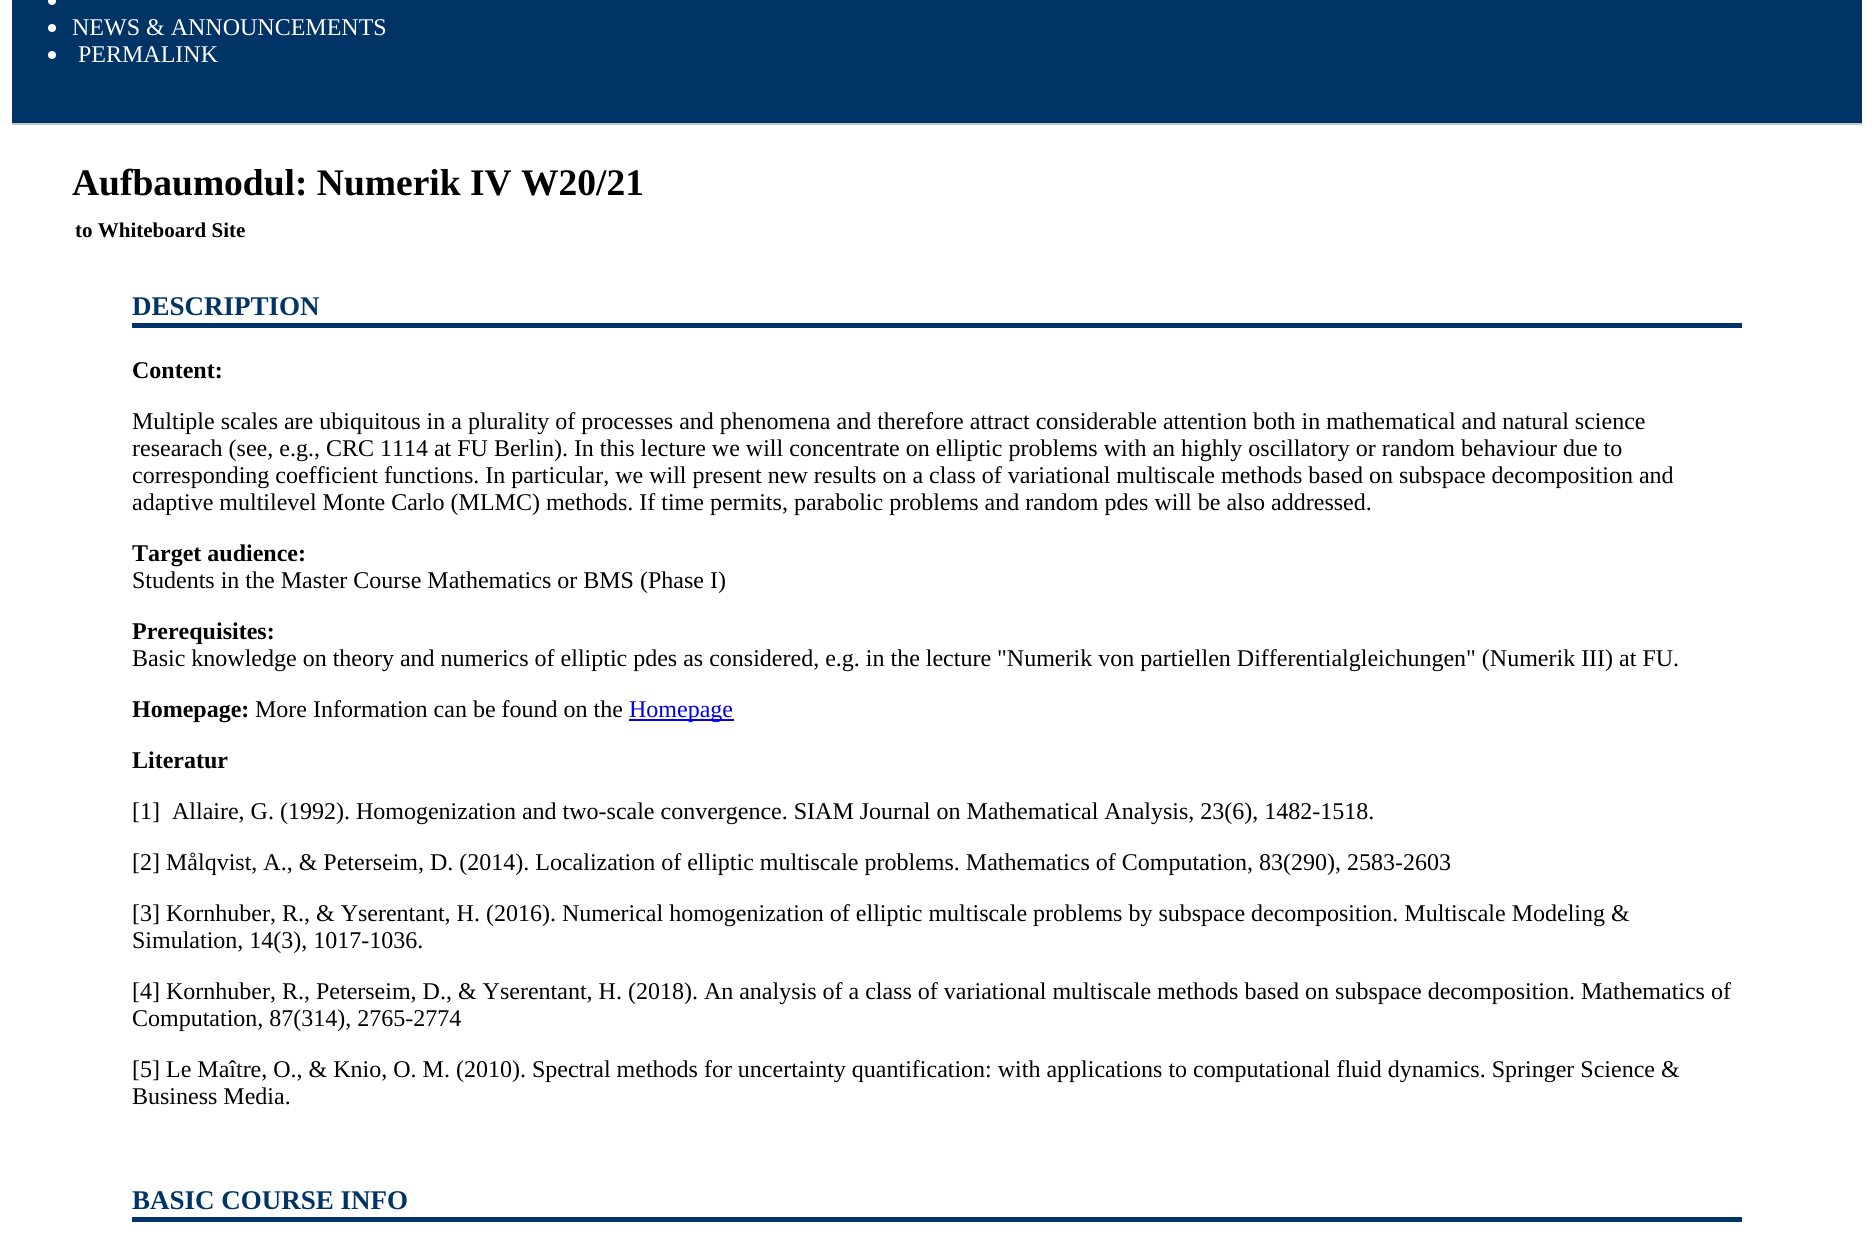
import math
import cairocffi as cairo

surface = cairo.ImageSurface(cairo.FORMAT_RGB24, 1874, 1253)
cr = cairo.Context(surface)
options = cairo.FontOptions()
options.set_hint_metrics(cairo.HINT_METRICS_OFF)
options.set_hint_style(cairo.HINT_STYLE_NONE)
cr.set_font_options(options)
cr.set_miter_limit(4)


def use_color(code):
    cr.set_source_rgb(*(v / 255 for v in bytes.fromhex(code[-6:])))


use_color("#ffffff")
cr.paint()
use_color("#003366")
cr.rectangle(12, 0, 1850, 123)
cr.fill()
use_color("#c6c6c6")
cr.rectangle(12, 123, 1850, 2)
cr.fill()
use_color("#ffffff")
cr.arc(52, 1, 4, 0, 2 * math.pi)
cr.fill()
cr.arc(52, 28, 4, 0, 2 * math.pi)
cr.fill()
cr.select_font_face("Liberation Serif")
cr.set_font_size(24)
cr.move_to(72, 35)
cr.show_text("NEWS & ANNOUNCEMENTS")
cr.new_path()
cr.arc(52, 55, 4, 0, 2 * math.pi)
cr.fill()
cr.move_to(78, 62)
cr.show_text("PERMALINK")
cr.select_font_face("Liberation Serif", cairo.FONT_SLANT_NORMAL, cairo.FONT_WEIGHT_BOLD)
cr.set_font_size(37.5)
use_color("#000000")
cr.move_to(72, 195)
cr.show_text("Aufbaumodul: Numerik IV W20/21")
cr.set_font_size(21)
cr.move_to(75, 237)
cr.show_text("to Whiteboard Site")
cr.set_font_size(27)
use_color("#003366")
cr.move_to(132, 315)
cr.show_text("DESCRIPTION")
cr.rectangle(132, 323, 1610, 5)
cr.fill()
cr.set_font_size(24)
use_color("#000000")
cr.move_to(132, 378)
cr.show_text("Content:")
cr.select_font_face("Liberation Serif")
cr.move_to(132, 429)
cr.show_text("Multiple scales are ubiquitous in a plurality of processes and phenomena and therefore attract considerable attention both in mathematical and natural science")
cr.move_to(132, 456)
cr.show_text("researach (see, e.g., CRC 1114 at FU Berlin). In this lecture we will concentrate on elliptic problems with an highly oscillatory or random behaviour due to")
cr.move_to(132, 483)
cr.show_text("corresponding coefficient functions. In particular, we will present new results on a class of variational multiscale methods based on subspace decomposition and")
cr.move_to(132, 510)
cr.show_text("adaptive multilevel Monte Carlo (MLMC) methods. If time permits, parabolic problems and random pdes will be also addressed.")
cr.select_font_face("Liberation Serif", cairo.FONT_SLANT_NORMAL, cairo.FONT_WEIGHT_BOLD)
cr.move_to(132, 561)
cr.show_text("Target audience:")
cr.select_font_face("Liberation Serif")
cr.move_to(132, 588)
cr.show_text("Students in the Master Course Mathematics or BMS (Phase I)")
cr.select_font_face("Liberation Serif", cairo.FONT_SLANT_NORMAL, cairo.FONT_WEIGHT_BOLD)
cr.move_to(132, 639)
cr.show_text("Prerequisites:")
cr.select_font_face("Liberation Serif")
cr.move_to(132, 666)
cr.show_text("Basic knowledge on theory and numerics of elliptic pdes as considered, e.g. in the lecture \"Numerik von partiellen Differentialgleichungen\" (Numerik III) at FU.")
cr.select_font_face("Liberation Serif", cairo.FONT_SLANT_NORMAL, cairo.FONT_WEIGHT_BOLD)
cr.move_to(132, 717)
cr.show_text("Homepage:")
cr.select_font_face("Liberation Serif")
cr.move_to(255, 717)
cr.show_text("More Information can be found on the")
use_color("#0000ee")
cr.rectangle(629, 719, 105, 2)
cr.fill()
cr.move_to(629, 717)
cr.show_text("Homepage")
cr.select_font_face("Liberation Serif", cairo.FONT_SLANT_NORMAL, cairo.FONT_WEIGHT_BOLD)
use_color("#000000")
cr.move_to(132, 768)
cr.show_text("Literatur")
cr.select_font_face("Liberation Serif")
cr.move_to(132, 819)
cr.show_text("[1]  Allaire, G. (1992). Homogenization and two-scale convergence. SIAM Journal on Mathematical Analysis, 23(6), 1482-1518.")
cr.move_to(132, 870)
cr.show_text("[2] Målqvist, A., & Peterseim, D. (2014). Localization of elliptic multiscale problems. Mathematics of Computation, 83(290), 2583-2603")
cr.move_to(132, 921)
cr.show_text("[3] Kornhuber, R., & Yserentant, H. (2016). Numerical homogenization of elliptic multiscale problems by subspace decomposition. Multiscale Modeling &")
cr.move_to(132, 948)
cr.show_text("Simulation, 14(3), 1017-1036.")
cr.move_to(132, 999)
cr.show_text("[4] Kornhuber, R., Peterseim, D., & Yserentant, H. (2018). An analysis of a class of variational multiscale methods based on subspace decomposition. Mathematics of")
cr.move_to(132, 1026)
cr.show_text("Computation, 87(314), 2765-2774")
cr.move_to(132, 1077)
cr.show_text("[5] Le Maître, O., & Knio, O. M. (2010). Spectral methods for uncertainty quantification: with applications to computational fluid dynamics. Springer Science &")
cr.move_to(132, 1104)
cr.show_text("Business Media.")
cr.select_font_face("Liberation Serif", cairo.FONT_SLANT_NORMAL, cairo.FONT_WEIGHT_BOLD)
cr.set_font_size(27)
use_color("#003366")
cr.move_to(132, 1209)
cr.show_text("BASIC COURSE INFO")
cr.rectangle(132, 1217, 1610, 5)
cr.fill()
surface.write_to_png("result.png")
